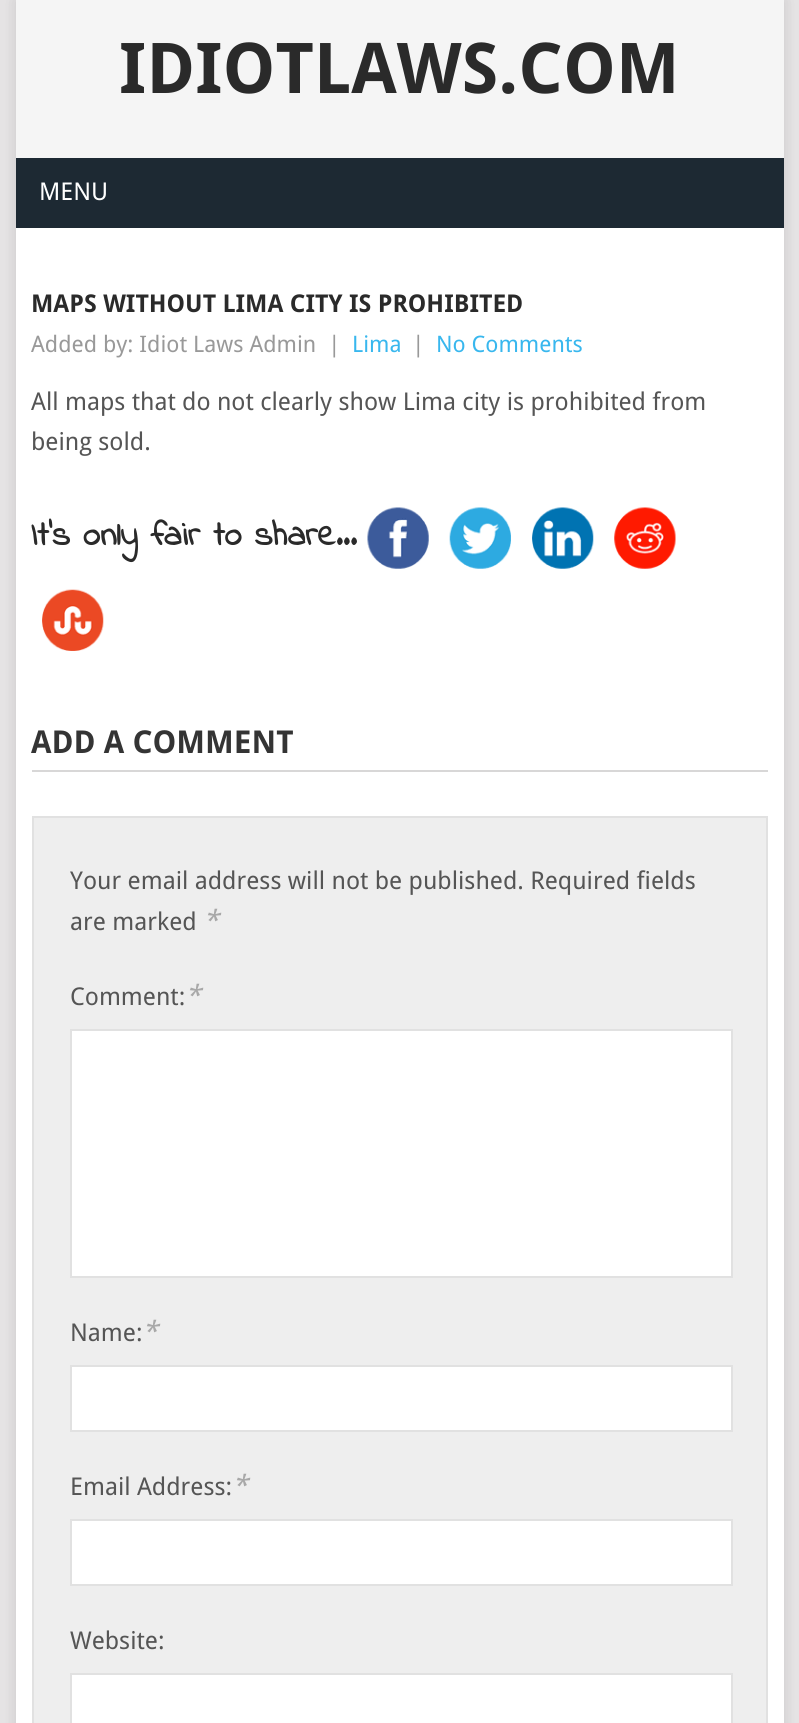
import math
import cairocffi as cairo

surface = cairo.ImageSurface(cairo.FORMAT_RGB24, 799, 1723)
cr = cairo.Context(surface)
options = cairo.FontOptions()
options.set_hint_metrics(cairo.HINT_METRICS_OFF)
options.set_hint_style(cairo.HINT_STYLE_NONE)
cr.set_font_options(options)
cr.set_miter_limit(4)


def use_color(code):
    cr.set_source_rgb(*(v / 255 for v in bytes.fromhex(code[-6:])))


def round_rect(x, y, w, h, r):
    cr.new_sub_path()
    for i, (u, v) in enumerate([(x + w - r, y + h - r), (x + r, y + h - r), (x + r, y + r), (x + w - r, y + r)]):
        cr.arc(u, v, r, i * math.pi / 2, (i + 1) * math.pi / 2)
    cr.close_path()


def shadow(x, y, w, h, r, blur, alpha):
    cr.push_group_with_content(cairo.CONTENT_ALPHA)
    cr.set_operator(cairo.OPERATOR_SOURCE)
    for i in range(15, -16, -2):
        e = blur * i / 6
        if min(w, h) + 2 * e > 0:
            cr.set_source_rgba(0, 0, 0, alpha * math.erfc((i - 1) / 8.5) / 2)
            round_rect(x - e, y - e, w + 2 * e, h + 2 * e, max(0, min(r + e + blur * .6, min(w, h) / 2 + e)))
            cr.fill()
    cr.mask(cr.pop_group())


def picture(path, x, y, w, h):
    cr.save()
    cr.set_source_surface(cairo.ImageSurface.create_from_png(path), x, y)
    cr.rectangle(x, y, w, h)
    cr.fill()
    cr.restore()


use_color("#e7e5e6")
cr.paint()
use_color("#323232")
shadow(16, 0, 768, 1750, 0, 9, 0.17)
use_color("#ffffff")
cr.rectangle(16, 228, 768, 1495)
cr.fill()
use_color("#f5f5f5")
cr.rectangle(16, 0, 768, 158)
cr.fill()
cr.select_font_face("Droid Sans", cairo.FONT_SLANT_NORMAL, cairo.FONT_WEIGHT_BOLD)
cr.set_font_size(70)
use_color("#2a2a2a")
cr.move_to(119, 93)
cr.show_text("IDIOTLAWS.COM")
use_color("#1d2933")
cr.rectangle(16, 158, 768, 70)
cr.fill()
cr.select_font_face("Droid Sans")
cr.set_font_size(24.5)
use_color("#ffffff")
cr.move_to(39, 200)
cr.show_text("MENU")
cr.select_font_face("Droid Sans", cairo.FONT_SLANT_NORMAL, cairo.FONT_WEIGHT_BOLD)
use_color("#2a2a2a")
cr.move_to(31, 312)
cr.show_text("MAPS WITHOUT LIMA CITY IS PROHIBITED")
cr.select_font_face("Droid Sans")
cr.set_font_size(22.75)
use_color("#999999")
cr.move_to(31, 352)
cr.show_text("Added by: Idiot Laws Admin")
cr.move_to(328, 352)
cr.show_text("|")
use_color("#38b7ee")
cr.move_to(352, 352)
cr.show_text("Lima")
use_color("#999999")
cr.move_to(412, 352)
cr.show_text("|")
use_color("#38b7ee")
cr.move_to(436, 352)
cr.show_text("No Comments")
cr.set_font_size(24.5)
use_color("#555555")
cr.move_to(31, 410)
cr.show_text("All maps that do not clearly show Lima city is prohibited from")
cr.move_to(31, 450)
cr.show_text("being sold.")
cr.select_font_face("Indie Flower", cairo.FONT_SLANT_NORMAL, cairo.FONT_WEIGHT_BOLD)
cr.set_font_size(35)
use_color("#2a2a2a")
cr.move_to(31, 545)
cr.show_text("It's only fair to share...")
picture("img1.png", 367, 507, 62, 62)
picture("img2.png", 449, 507, 62, 62)
picture("img3.png", 532, 507, 62, 62)
picture("img4.png", 614, 507, 62, 62)
picture("img5.png", 42, 589, 62, 62)
use_color("#d8d7d7")
cr.rectangle(32, 770, 736, 2)
cr.fill()
cr.select_font_face("Droid Sans", cairo.FONT_SLANT_NORMAL, cairo.FONT_WEIGHT_BOLD)
cr.set_font_size(31.5)
use_color("#343434")
cr.move_to(31, 753)
cr.show_text("ADD A COMMENT")
use_color("#eeeeee")
cr.rectangle(33, 817, 734, 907)
cr.fill_preserve()
use_color("#e1e1e1")
cr.stroke()
cr.select_font_face("Droid Sans")
cr.set_font_size(24.5)
use_color("#555555")
cr.move_to(70, 889)
cr.show_text("Your email address will not be published. Required fields")
cr.move_to(70, 930)
cr.show_text("are marked")
cr.select_font_face("Droid Sans", cairo.FONT_SLANT_ITALIC)
cr.set_font_size(28)
use_color("#a8a8a8")
cr.move_to(203, 930)
cr.show_text("*")
cr.select_font_face("Droid Sans")
cr.set_font_size(24.5)
use_color("#555555")
cr.move_to(70, 1005)
cr.show_text("Comment:")
cr.select_font_face("Droid Sans", cairo.FONT_SLANT_ITALIC)
cr.set_font_size(28)
use_color("#a8a8a8")
cr.move_to(185, 1005)
cr.show_text("*")
use_color("#ffffff")
cr.rectangle(71, 1030, 661, 247)
cr.fill_preserve()
use_color("#e1e1e1")
cr.stroke()
cr.select_font_face("Droid Sans")
cr.set_font_size(24.5)
use_color("#555555")
cr.move_to(70, 1341)
cr.show_text("Name:")
cr.select_font_face("Droid Sans", cairo.FONT_SLANT_ITALIC)
cr.set_font_size(28)
use_color("#a8a8a8")
cr.move_to(142, 1341)
cr.show_text("*")
use_color("#ffffff")
cr.rectangle(71, 1366, 661, 65)
cr.fill_preserve()
use_color("#e1e1e1")
cr.stroke()
cr.select_font_face("Droid Sans")
cr.set_font_size(24.5)
use_color("#555555")
cr.move_to(70, 1495)
cr.show_text("Email Address:")
cr.select_font_face("Droid Sans", cairo.FONT_SLANT_ITALIC)
cr.set_font_size(28)
use_color("#a8a8a8")
cr.move_to(232, 1495)
cr.show_text("*")
use_color("#ffffff")
cr.rectangle(71, 1520, 661, 65)
cr.fill_preserve()
use_color("#e1e1e1")
cr.stroke()
cr.select_font_face("Droid Sans")
cr.set_font_size(24.5)
use_color("#555555")
cr.move_to(70, 1649)
cr.show_text("Website:")
use_color("#ffffff")
cr.rectangle(71, 1674, 661, 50)
cr.fill_preserve()
use_color("#e1e1e1")
cr.stroke()
surface.write_to_png("result.png")
